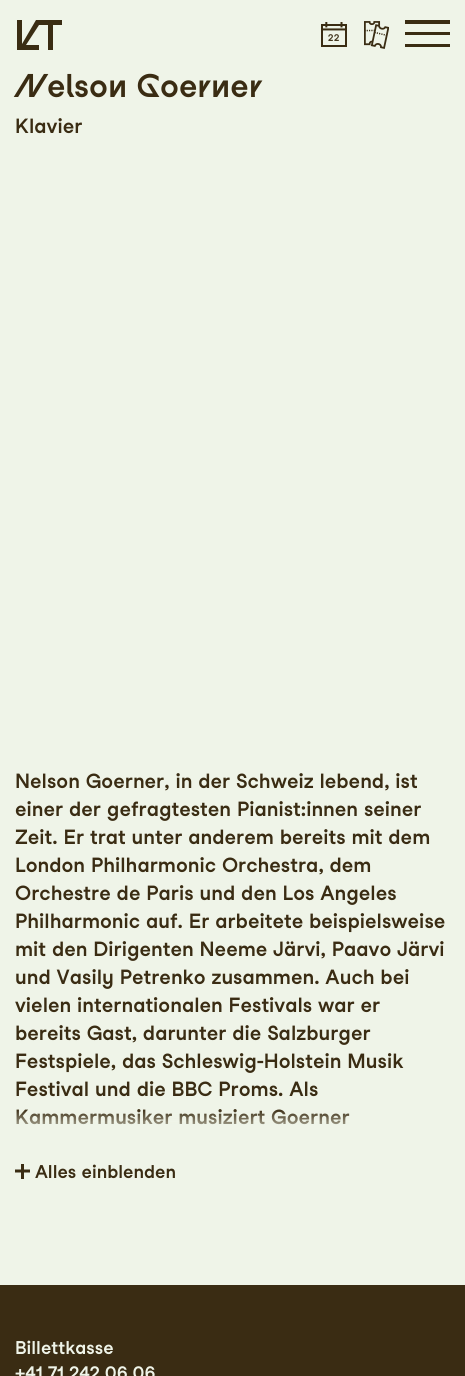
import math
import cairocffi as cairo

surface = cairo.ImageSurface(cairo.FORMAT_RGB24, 465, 1376)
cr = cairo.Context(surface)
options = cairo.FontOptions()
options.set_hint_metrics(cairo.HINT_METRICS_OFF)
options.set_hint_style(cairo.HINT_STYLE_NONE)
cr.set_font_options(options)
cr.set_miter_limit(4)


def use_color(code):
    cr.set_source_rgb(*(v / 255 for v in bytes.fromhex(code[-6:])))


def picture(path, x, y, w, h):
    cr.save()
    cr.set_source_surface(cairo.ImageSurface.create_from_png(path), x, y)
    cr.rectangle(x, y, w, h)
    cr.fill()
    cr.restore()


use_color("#eff4e8")
cr.paint()
use_color("#3a2c13")
cr.set_fill_rule(cairo.FILL_RULE_EVEN_ODD)
cr.new_path()
cr.move_to(39, 45)
cr.line_to(26, 45)
cr.line_to(39, 25)
cr.line_to(48, 25)
cr.line_to(48, 50)
cr.line_to(53, 50)
cr.line_to(53, 25)
cr.line_to(62, 25)
cr.line_to(62, 20)
cr.line_to(36, 20)
cr.line_to(22, 44)
cr.line_to(22, 20)
cr.line_to(17, 20)
cr.line_to(17, 50)
cr.line_to(39, 50)
cr.close_path()
cr.fill()
picture("img1.png", 321, 22, 26, 25)
picture("img2.png", 364, 21, 25, 28)
cr.rectangle(405, 20, 45, 4)
cr.fill()
cr.rectangle(405, 32, 45, 3)
cr.fill()
cr.rectangle(405, 44, 45, 3)
cr.fill()
cr.select_font_face("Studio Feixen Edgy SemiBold")
cr.set_font_size(32)
cr.move_to(15, 97)
cr.show_text("Nelson Goerner")
cr.select_font_face("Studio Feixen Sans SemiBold")
cr.set_font_size(20)
cr.move_to(15, 133)
cr.show_text("Klavier")
cr.move_to(15, 788)
cr.show_text("Nelson Goerner, in der Schweiz lebend, ist")
cr.move_to(15, 816)
cr.show_text("einer der gefragtesten Pianist:innen seiner")
cr.move_to(15, 844)
cr.show_text("Zeit. Er trat unter anderem bereits mit dem")
cr.move_to(15, 872)
cr.show_text("London Philharmonic Orchestra, dem")
cr.move_to(15, 900)
cr.show_text("Orchestre de Paris und den Los Angeles")
cr.move_to(15, 928)
cr.show_text("Philharmonic auf. Er arbeitete beispielsweise")
cr.move_to(15, 956)
cr.show_text("mit den Dirigenten Neeme Järvi, Paavo Järvi")
cr.move_to(15, 984)
cr.show_text("und Vasily Petrenko zusammen. Auch bei")
cr.move_to(15, 1012)
cr.show_text("vielen internationalen Festivals war er")
cr.move_to(15, 1040)
cr.show_text("bereits Gast, darunter die Salzburger")
cr.move_to(15, 1068)
cr.show_text("Festspiele, das Schleswig-Holstein Musik")
cr.move_to(15, 1096)
cr.show_text("Festival und die BBC Proms. Als")
cr.move_to(15, 1124)
cr.show_text("Kammermusiker musiziert Goerner")
gradient = cairo.LinearGradient(233, 1139, 233, 1109)
gradient.add_color_stop_rgba(0, 0.937, 0.957, 0.91, 1)
gradient.add_color_stop_rgba(1, 0.937, 0.957, 0.91, 0)
cr.set_source(gradient)
cr.rectangle(16, 1110, 334, 15)
cr.fill()
use_color("#3a2c13")
cr.rectangle(21, 1164, 3, 15)
cr.fill()
cr.new_path()
cr.move_to(15, 1171)
cr.line_to(30, 1171)
cr.set_line_width(3)
cr.stroke()
cr.set_font_size(18)
cr.move_to(35, 1178)
cr.show_text("Alles einblenden")
cr.rectangle(0, 1285, 465, 91)
cr.fill()
use_color("#eff4e8")
cr.move_to(15, 1354)
cr.show_text("Billettkasse")
cr.move_to(15, 1379)
cr.show_text("+41 71 242 06 06")
surface.write_to_png("result.png")
